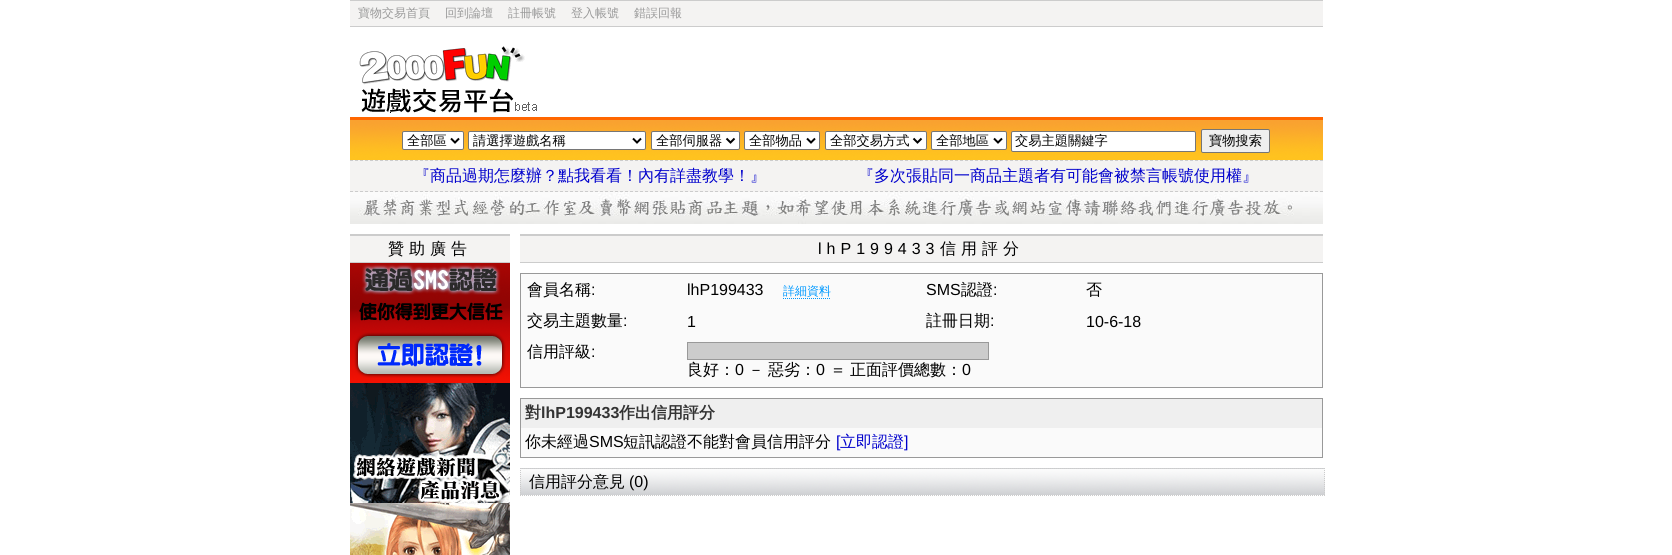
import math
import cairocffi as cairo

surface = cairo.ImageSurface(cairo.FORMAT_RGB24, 1672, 555)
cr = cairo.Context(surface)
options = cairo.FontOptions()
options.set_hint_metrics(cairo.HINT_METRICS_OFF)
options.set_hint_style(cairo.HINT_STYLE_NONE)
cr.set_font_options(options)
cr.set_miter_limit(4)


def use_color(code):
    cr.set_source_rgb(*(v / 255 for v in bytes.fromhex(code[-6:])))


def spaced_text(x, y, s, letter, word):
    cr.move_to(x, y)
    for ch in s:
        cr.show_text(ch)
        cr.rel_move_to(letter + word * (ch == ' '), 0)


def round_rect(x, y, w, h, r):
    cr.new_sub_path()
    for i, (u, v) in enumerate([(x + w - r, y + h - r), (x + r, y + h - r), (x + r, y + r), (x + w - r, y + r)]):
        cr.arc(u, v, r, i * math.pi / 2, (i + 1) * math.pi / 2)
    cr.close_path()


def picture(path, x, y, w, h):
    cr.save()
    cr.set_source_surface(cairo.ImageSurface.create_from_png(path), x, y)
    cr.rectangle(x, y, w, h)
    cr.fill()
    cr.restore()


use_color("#ffffff")
cr.paint()
use_color("#f4f3f2")
cr.rectangle(350, 1, 973, 25)
cr.fill()
use_color("#cccccc")
cr.rectangle(350, 0, 973, 1)
cr.fill()
cr.rectangle(350, 26, 973, 1)
cr.fill()
cr.select_font_face("WenQuanYi Zen Hei Medium")
cr.set_font_size(12)
use_color("#999999")
cr.move_to(358, 17)
cr.show_text("寶物交易首頁")
cr.move_to(445, 17)
cr.show_text("回到論壇")
cr.move_to(508, 17)
cr.show_text("註冊帳號")
cr.move_to(571, 17)
cr.show_text("登入帳號")
cr.move_to(634, 17)
cr.show_text("錯誤回報")
picture("img1.png", 359, 46, 178, 67)
picture("img2.png", 350, 120, 973, 40)
use_color("#ff6600")
cr.rectangle(350, 117, 973, 3)
cr.fill()
use_color("#ffffff")
round_rect(402.5, 131.5, 61, 18, 1.5)
cr.fill_preserve()
use_color("#767676")
cr.set_line_width(1)
cr.stroke()
cr.new_path()
cr.move_to(451, 138.5)
cr.line_to(455, 142.5)
cr.line_to(459, 138.5)
use_color("#000000")
cr.set_line_width(2)
cr.stroke()
cr.set_font_size(13.25)
cr.move_to(407, 145)
cr.show_text("全部區")
use_color("#ffffff")
round_rect(468.5, 131.5, 177, 18, 1.5)
cr.fill_preserve()
use_color("#767676")
cr.set_line_width(1)
cr.stroke()
cr.new_path()
cr.move_to(633, 138.5)
cr.line_to(637, 142.5)
cr.line_to(641, 138.5)
use_color("#000000")
cr.set_line_width(2)
cr.stroke()
cr.move_to(473, 145)
cr.show_text("請選擇遊戲名稱")
use_color("#ffffff")
round_rect(651.5, 131.5, 88, 18, 1.5)
cr.fill_preserve()
use_color("#767676")
cr.set_line_width(1)
cr.stroke()
cr.new_path()
cr.move_to(726.5, 138.5)
cr.line_to(730.5, 142.5)
cr.line_to(734.5, 138.5)
use_color("#000000")
cr.set_line_width(2)
cr.stroke()
cr.move_to(656, 145)
cr.show_text("全部伺服器")
use_color("#ffffff")
round_rect(744.5, 131.5, 75, 18, 1.5)
cr.fill_preserve()
use_color("#767676")
cr.set_line_width(1)
cr.stroke()
cr.new_path()
cr.move_to(807, 138.5)
cr.line_to(811, 142.5)
cr.line_to(815, 138.5)
use_color("#000000")
cr.set_line_width(2)
cr.stroke()
cr.move_to(749, 145)
cr.show_text("全部物品")
use_color("#ffffff")
round_rect(825.5, 131.5, 101, 18, 1.5)
cr.fill_preserve()
use_color("#767676")
cr.set_line_width(1)
cr.stroke()
cr.new_path()
cr.move_to(913.5, 138.5)
cr.line_to(917.5, 142.5)
cr.line_to(921.5, 138.5)
use_color("#000000")
cr.set_line_width(2)
cr.stroke()
cr.move_to(830, 145)
cr.show_text("全部交易方式")
use_color("#ffffff")
round_rect(931.5, 131.5, 75, 18, 1.5)
cr.fill_preserve()
use_color("#767676")
cr.set_line_width(1)
cr.stroke()
cr.new_path()
cr.move_to(994, 138.5)
cr.line_to(998, 142.5)
cr.line_to(1002, 138.5)
use_color("#000000")
cr.set_line_width(2)
cr.stroke()
cr.move_to(936, 145)
cr.show_text("全部地區")
use_color("#ffffff")
round_rect(1011.5, 131.5, 184, 20, 1.5)
cr.fill_preserve()
use_color("#767676")
cr.set_line_width(1)
cr.stroke()
use_color("#000000")
cr.move_to(1015, 145)
cr.show_text("交易主題關鍵字")
use_color("#efefef")
round_rect(1201.5, 129.5, 68, 23, 1.5)
cr.fill_preserve()
use_color("#767676")
cr.stroke()
use_color("#000000")
cr.move_to(1209, 145)
cr.show_text("寶物搜索")
use_color("#f4f3f2")
cr.rectangle(350, 160, 973, 32)
cr.fill()
cr.new_path()
cr.move_to(350, 160.5)
cr.line_to(1323, 160.5)
use_color("#cccccc")
cr.set_dash([3, 2])
cr.stroke()
cr.new_path()
cr.move_to(350, 191.5)
cr.line_to(1323, 191.5)
cr.stroke()
cr.set_font_size(16)
use_color("#0000cc")
cr.move_to(414, 181)
cr.show_text("『商品過期怎麼辦？點我看看！內有詳盡教學！』")
cr.move_to(858, 181)
cr.show_text("『多次張貼同一商品主題者有可能會被禁言帳號使用權』")
picture("img3.png", 350, 192, 973, 32)
use_color("#f4f3f2")
cr.rectangle(350, 236, 160, 26)
cr.fill()
use_color("#cccccc")
cr.rectangle(350, 234, 160, 2)
cr.fill()
cr.rectangle(350, 262, 160, 1)
cr.fill()
use_color("#000000")
spaced_text(388, 254, "贊助廣告", 5, 0)
picture("img4.png", 350, 263, 160, 120)
picture("img5.png", 350, 383, 160, 120)
picture("img6.png", 350, 503, 160, 52)
use_color("#f4f3f2")
cr.rectangle(520, 236, 803, 26)
cr.fill()
use_color("#cccccc")
cr.rectangle(520, 234, 803, 2)
cr.fill()
cr.rectangle(520, 262, 803, 1)
cr.fill()
cr.select_font_face("Liberation Sans")
use_color("#000000")
spaced_text(818, 254, "lhP199433", 5, 0)
cr.select_font_face("WenQuanYi Zen Hei Medium")
spaced_text(940, 254, "信用評分", 5, 0)
use_color("#fafafa")
cr.rectangle(520.5, 273.5, 802, 114)
cr.fill_preserve()
use_color("#999999")
cr.set_dash([])
cr.stroke()
use_color("#000000")
cr.move_to(527, 295)
cr.show_text("會員名稱")
cr.select_font_face("Liberation Sans")
cr.move_to(591, 295)
cr.show_text(":")
cr.move_to(687, 295)
cr.show_text("lhP199433")
cr.select_font_face("WenQuanYi Zen Hei Medium")
cr.set_font_size(12)
use_color("#0099ff")
cr.move_to(783, 295)
cr.show_text("詳細資料")
cr.new_path()
cr.move_to(783, 298.5)
cr.line_to(831, 298.5)
cr.set_dash([1, 1])
cr.stroke()
cr.select_font_face("Liberation Sans")
cr.set_font_size(16)
use_color("#000000")
cr.move_to(926, 295)
cr.show_text("SMS")
cr.select_font_face("WenQuanYi Zen Hei Medium")
cr.move_to(961, 295)
cr.show_text("認證")
cr.select_font_face("Liberation Sans")
cr.move_to(993, 295)
cr.show_text(":")
cr.select_font_face("WenQuanYi Zen Hei Medium")
cr.move_to(1086, 295)
cr.show_text("否")
cr.move_to(527, 326)
cr.show_text("交易主題數量")
cr.select_font_face("Liberation Sans")
cr.move_to(623, 326)
cr.show_text(":")
cr.move_to(687, 327)
cr.show_text("1")
cr.select_font_face("WenQuanYi Zen Hei Medium")
cr.move_to(926, 326)
cr.show_text("註冊日期")
cr.select_font_face("Liberation Sans")
cr.move_to(990, 326)
cr.show_text(":")
cr.move_to(1086, 327)
cr.show_text("10-6-18")
cr.select_font_face("WenQuanYi Zen Hei Medium")
cr.move_to(527, 357)
cr.show_text("信用評級")
cr.select_font_face("Liberation Sans")
cr.move_to(591, 357)
cr.show_text(":")
use_color("#cccccc")
cr.rectangle(687.5, 342.5, 301, 17)
cr.fill_preserve()
use_color("#999999")
cr.set_dash([])
cr.stroke()
cr.select_font_face("WenQuanYi Zen Hei Medium")
use_color("#000000")
cr.move_to(687, 375)
cr.show_text("良好：")
cr.select_font_face("Liberation Sans")
cr.move_to(735, 375)
cr.show_text("0")
cr.select_font_face("WenQuanYi Zen Hei Medium")
cr.move_to(748, 375)
cr.show_text("－")
cr.move_to(768, 375)
cr.show_text("惡劣：")
cr.select_font_face("Liberation Sans")
cr.move_to(816, 375)
cr.show_text("0")
cr.select_font_face("WenQuanYi Zen Hei Medium")
cr.move_to(830, 375)
cr.show_text("＝")
cr.move_to(850, 375)
cr.show_text("正面評價總數：")
cr.select_font_face("Liberation Sans")
cr.move_to(962, 375)
cr.show_text("0")
use_color("#fafafa")
cr.rectangle(521, 428, 801, 29)
cr.fill()
cr.rectangle(520.5, 398.5, 802, 59)
use_color("#999999")
cr.stroke()
use_color("#efefef")
cr.rectangle(521, 399, 801, 29)
cr.fill()
cr.select_font_face("WenQuanYi Zen Hei", cairo.FONT_SLANT_NORMAL, cairo.FONT_WEIGHT_BOLD)
use_color("#333333")
cr.move_to(525, 418)
cr.show_text("對")
cr.select_font_face("Liberation Sans", cairo.FONT_SLANT_NORMAL, cairo.FONT_WEIGHT_BOLD)
cr.move_to(541, 418)
cr.show_text("lhP199433")
cr.select_font_face("WenQuanYi Zen Hei", cairo.FONT_SLANT_NORMAL, cairo.FONT_WEIGHT_BOLD)
cr.move_to(619, 418)
cr.show_text("作出信用評分")
cr.select_font_face("WenQuanYi Zen Hei Medium")
use_color("#000000")
cr.move_to(525, 447)
cr.show_text("你未經過")
cr.select_font_face("Liberation Sans")
cr.move_to(589, 447)
cr.show_text("SMS")
cr.select_font_face("WenQuanYi Zen Hei Medium")
cr.move_to(623, 447)
cr.show_text("短訊認證不能對會員信用評分")
cr.select_font_face("Liberation Sans")
use_color("#0000cc")
cr.move_to(836, 447)
cr.show_text("[")
cr.select_font_face("WenQuanYi Zen Hei Medium")
cr.move_to(840, 447)
cr.show_text("立即認證")
cr.select_font_face("Liberation Sans")
cr.move_to(904, 447)
cr.show_text("]")
picture("img7.png", 520, 468, 805, 27)
cr.new_path()
cr.move_to(520, 468.5)
cr.line_to(1325, 468.5)
use_color("#cccccc")
cr.set_dash([1, 1])
cr.stroke()
cr.new_path()
cr.move_to(1324.5, 468)
cr.line_to(1324.5, 496)
cr.stroke()
cr.new_path()
cr.move_to(520, 495.5)
cr.line_to(1325, 495.5)
cr.stroke()
cr.new_path()
cr.move_to(520.5, 468)
cr.line_to(520.5, 496)
cr.stroke()
cr.select_font_face("WenQuanYi Zen Hei Medium")
use_color("#000000")
cr.move_to(529, 487)
cr.show_text("信用評分意見")
cr.select_font_face("Liberation Sans")
cr.move_to(629, 487)
cr.show_text("(0)")
surface.write_to_png("result.png")
